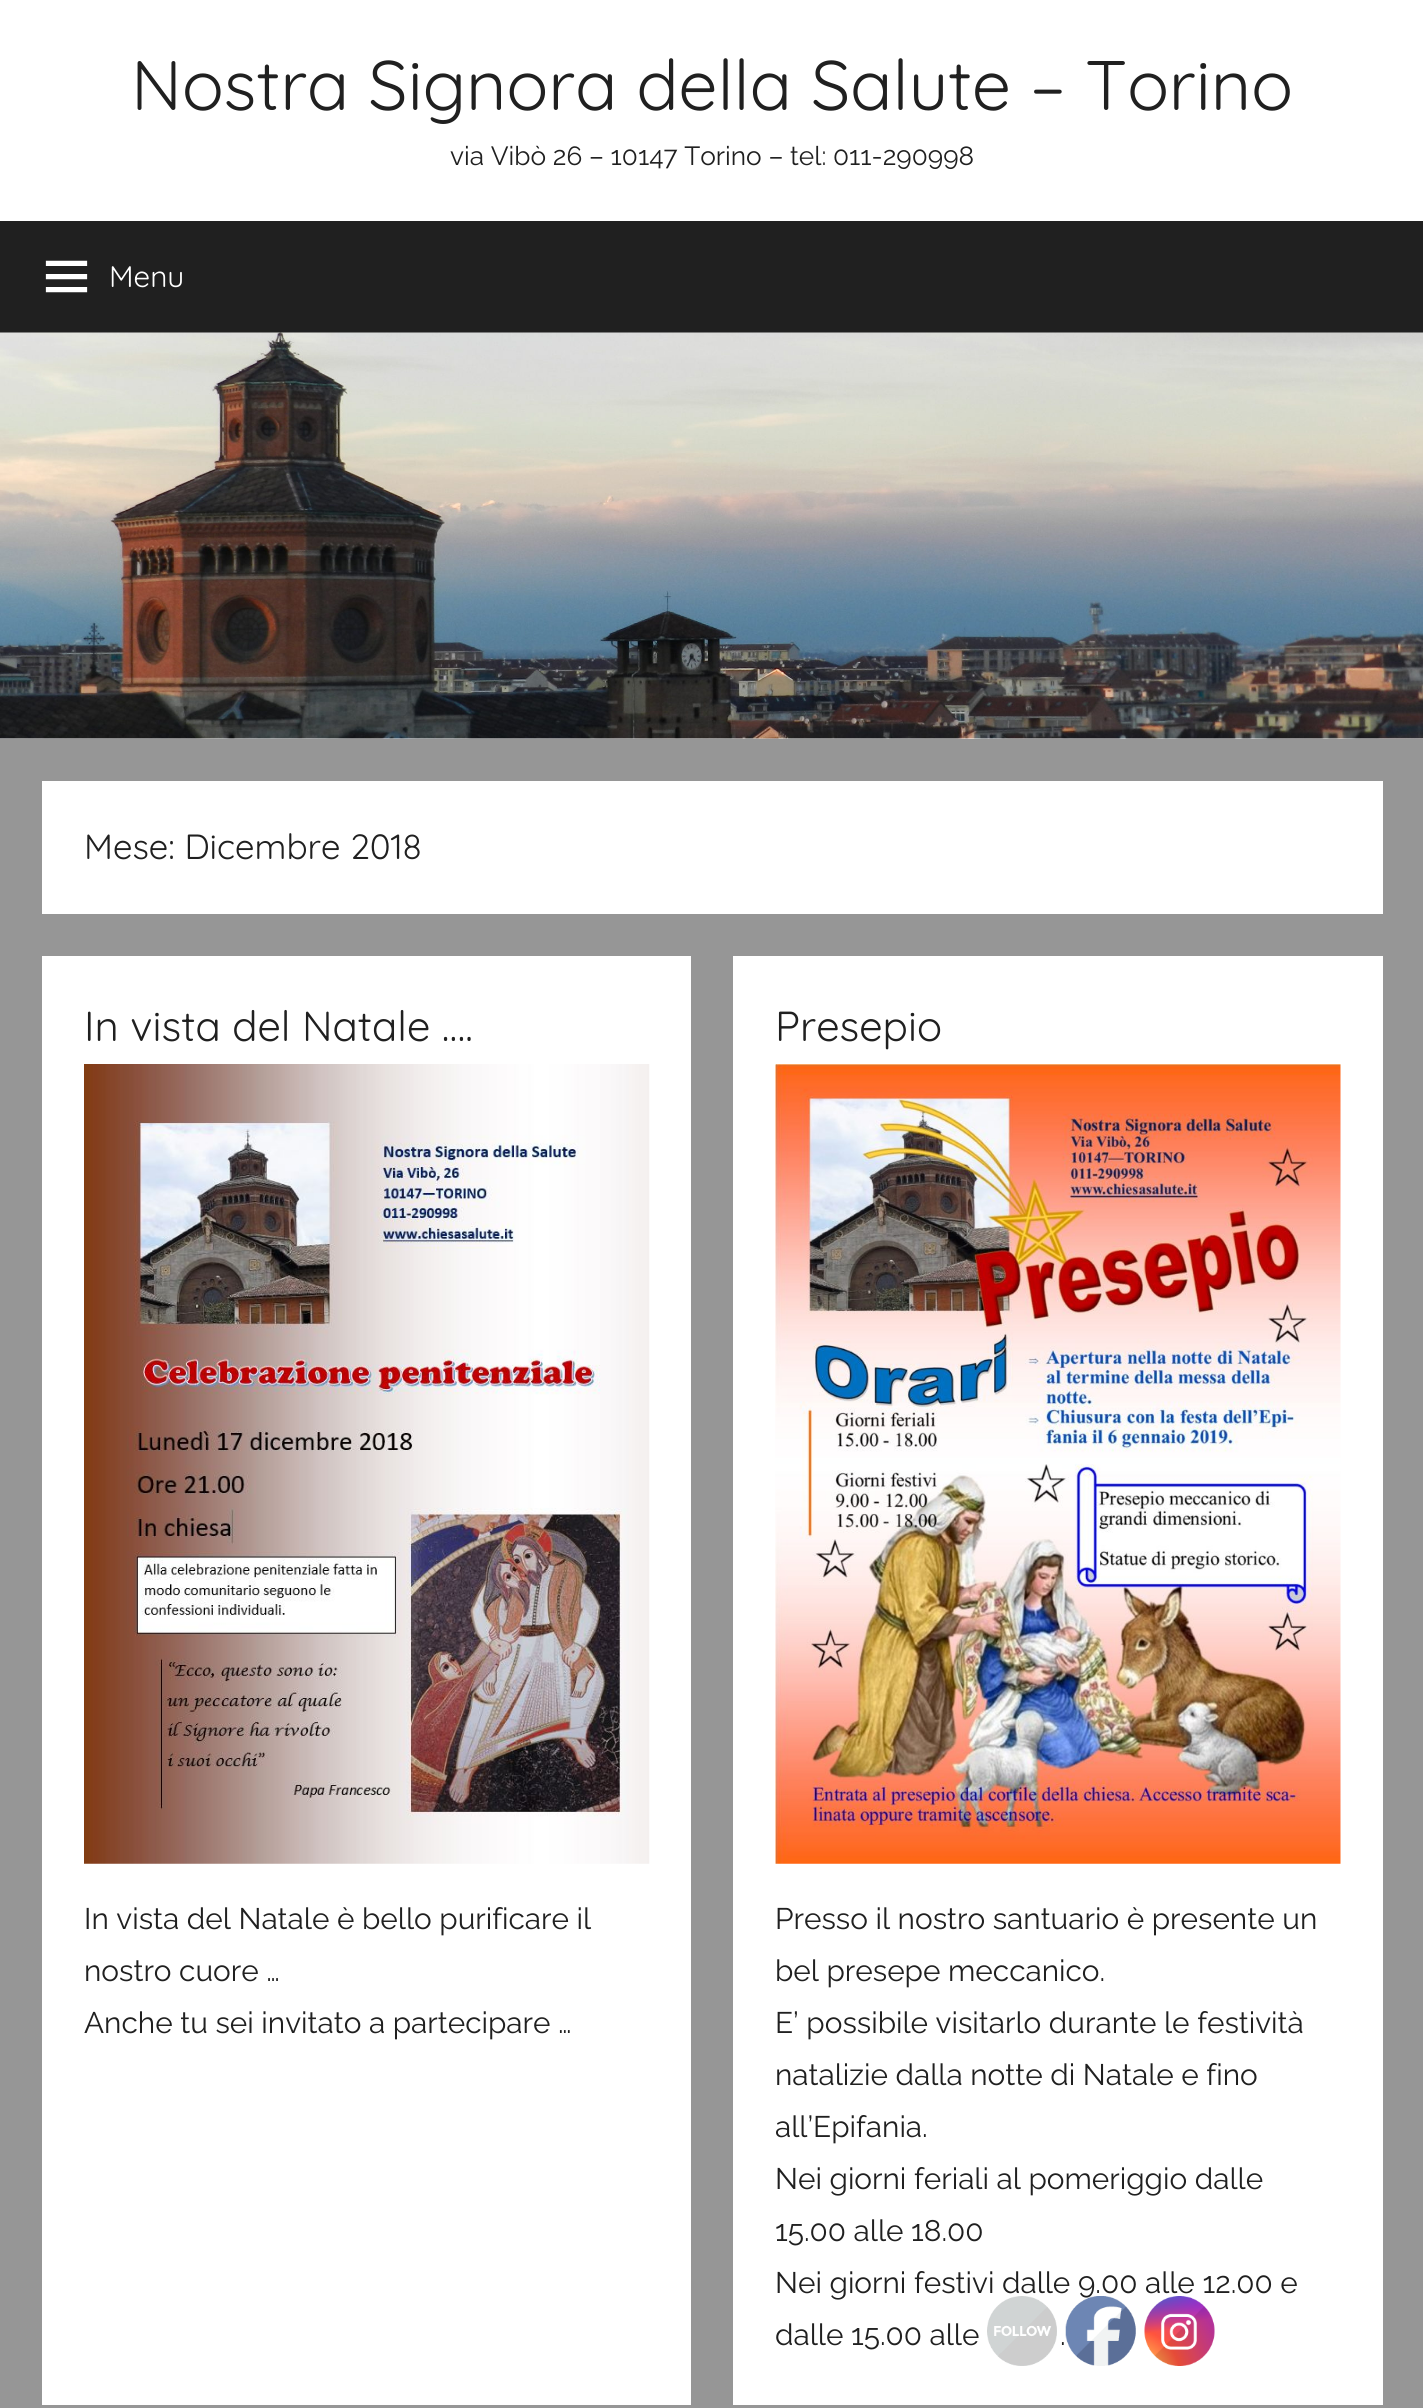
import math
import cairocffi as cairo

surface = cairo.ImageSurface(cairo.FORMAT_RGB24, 1423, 2408)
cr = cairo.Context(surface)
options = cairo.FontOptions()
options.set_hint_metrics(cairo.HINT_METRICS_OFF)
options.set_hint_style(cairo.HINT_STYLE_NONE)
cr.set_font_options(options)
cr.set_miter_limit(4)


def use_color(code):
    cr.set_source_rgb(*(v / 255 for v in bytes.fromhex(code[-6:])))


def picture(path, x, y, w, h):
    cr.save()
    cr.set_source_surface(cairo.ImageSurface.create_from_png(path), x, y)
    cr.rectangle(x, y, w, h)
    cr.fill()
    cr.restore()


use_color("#969696")
cr.paint()
use_color("#ffffff")
cr.rectangle(0, 0, 1423, 739)
cr.fill()
cr.select_font_face("Quicksand Light")
cr.set_font_size(70)
use_color("#202020")
cr.move_to(131, 110)
cr.show_text("Nostra Signora della Salute – Torino")
cr.select_font_face("Raleway Thin")
cr.set_font_size(26.25)
cr.move_to(450, 165)
cr.show_text("via Vibò 26 – 10147 Torino – tel: 011-290998")
cr.rectangle(0, 221, 1423, 112)
cr.fill()
picture("img1.png", 45, 260, 43, 33)
cr.select_font_face("Quicksand Light")
cr.set_font_size(29.75)
use_color("#ffffff")
cr.move_to(109, 287)
cr.show_text("Menu")
picture("img2.png", 0, 332, 1423, 407)
cr.rectangle(42, 781, 1341, 133)
cr.fill()
cr.set_font_size(35)
use_color("#202020")
cr.move_to(84, 859)
cr.show_text("Mese: Dicembre 2018")
use_color("#ffffff")
cr.rectangle(42, 956, 649, 1449)
cr.fill()
cr.set_font_size(42)
use_color("#202020")
cr.move_to(84, 1041)
cr.show_text("In vista del Natale ….")
picture("img3.png", 84, 1064, 566, 800)
cr.select_font_face("Raleway Thin")
cr.set_font_size(29.75)
cr.move_to(84, 1929)
cr.show_text("In vista del Natale è bello purificare il")
cr.move_to(84, 1981)
cr.show_text("nostro cuore …")
cr.move_to(84, 2033)
cr.show_text("Anche tu sei invitato a partecipare …")
use_color("#ffffff")
cr.rectangle(733, 956, 650, 1449)
cr.fill()
cr.select_font_face("Quicksand Light")
cr.set_font_size(42)
use_color("#202020")
cr.move_to(775, 1041)
cr.show_text("Presepio")
picture("img4.png", 775, 1064, 566, 800)
cr.select_font_face("Raleway Thin")
cr.set_font_size(29.75)
cr.move_to(775, 1929)
cr.show_text("Presso il nostro santuario è presente un")
cr.move_to(775, 1981)
cr.show_text("bel presepe meccanico.")
cr.move_to(775, 2033)
cr.show_text("E’ possibile visitarlo durante le festività")
cr.move_to(775, 2085)
cr.show_text("natalizie dalla notte di Natale e fino")
cr.move_to(775, 2137)
cr.show_text("all’Epifania.")
cr.move_to(775, 2189)
cr.show_text("Nei giorni feriali al pomeriggio dalle")
cr.move_to(775, 2241)
cr.show_text("15.00 alle 18.00")
cr.move_to(775, 2293)
cr.show_text("Nei giorni festivi dalle 9.00 alle 12.00 e")
cr.move_to(775, 2345)
cr.show_text("dalle 15.00 alle")
cr.move_to(1060, 2345)
cr.show_text(".")
picture("img5.png", 987, 2296, 70, 70)
picture("img6.png", 1065, 2296, 71, 70)
picture("img7.png", 1144, 2296, 71, 70)
surface.write_to_png("result.png")
